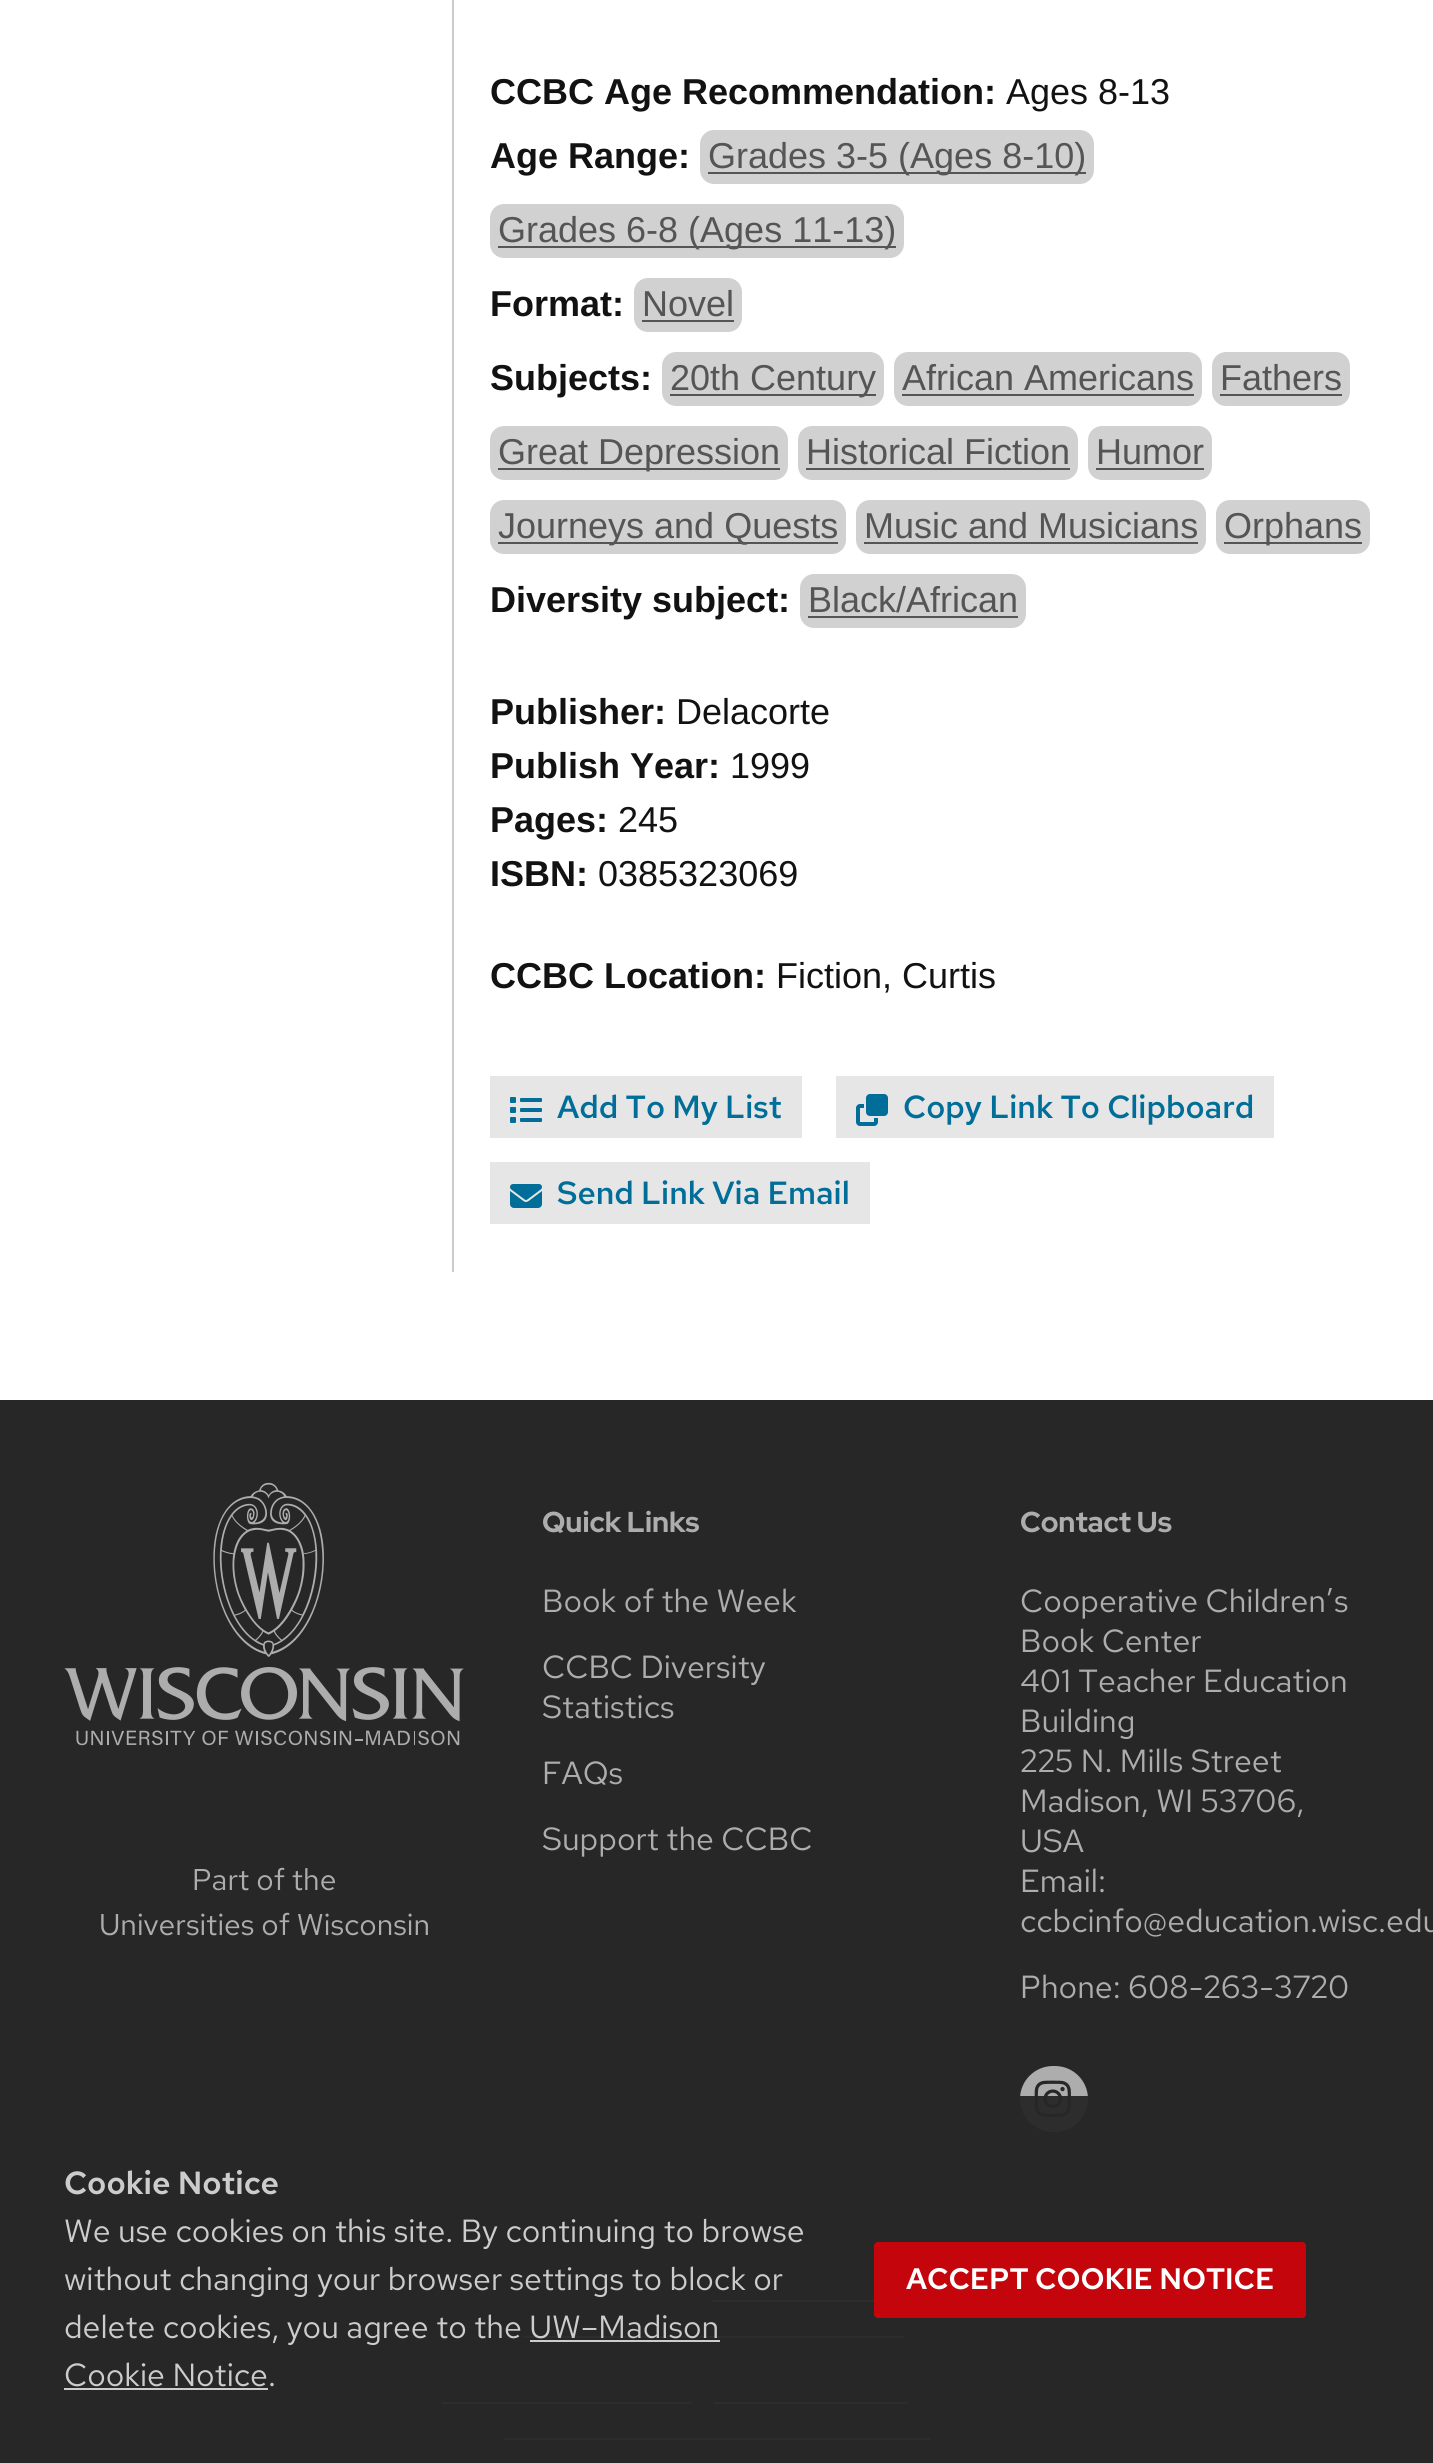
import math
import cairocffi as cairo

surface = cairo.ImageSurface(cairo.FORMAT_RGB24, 1433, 2463)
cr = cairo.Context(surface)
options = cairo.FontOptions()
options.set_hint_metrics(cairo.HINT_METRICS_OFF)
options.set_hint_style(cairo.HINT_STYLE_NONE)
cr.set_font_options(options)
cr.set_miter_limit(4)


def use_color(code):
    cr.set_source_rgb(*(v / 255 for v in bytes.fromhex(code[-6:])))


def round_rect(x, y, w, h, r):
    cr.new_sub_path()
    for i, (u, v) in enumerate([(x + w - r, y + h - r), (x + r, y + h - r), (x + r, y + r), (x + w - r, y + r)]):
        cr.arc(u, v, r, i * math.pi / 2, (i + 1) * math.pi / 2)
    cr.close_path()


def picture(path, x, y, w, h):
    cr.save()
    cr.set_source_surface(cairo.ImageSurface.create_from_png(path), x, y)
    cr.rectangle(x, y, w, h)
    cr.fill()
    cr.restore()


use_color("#ffffff")
cr.paint()
use_color("#cccccc")
cr.rectangle(452, 0, 2, 1272)
cr.fill()
cr.select_font_face("Liberation Sans", cairo.FONT_SLANT_NORMAL, cairo.FONT_WEIGHT_BOLD)
cr.set_font_size(36)
use_color("#121212")
cr.move_to(490, 104)
cr.show_text("CCBC Age Recommendation:")
cr.select_font_face("Liberation Sans")
cr.move_to(1006, 104)
cr.show_text("Ages 8-13")
cr.select_font_face("Liberation Sans", cairo.FONT_SLANT_NORMAL, cairo.FONT_WEIGHT_BOLD)
cr.move_to(490, 168)
cr.show_text("Age Range:")
use_color("#d1d1d1")
round_rect(700, 130, 394, 54, 14)
cr.fill()
use_color("#555555")
cr.rectangle(708, 172, 378, 2)
cr.fill()
cr.select_font_face("Liberation Sans")
cr.move_to(708, 168)
cr.show_text("Grades 3-5 (Ages 8-10)")
use_color("#d1d1d1")
round_rect(490, 204, 414, 54, 14)
cr.fill()
use_color("#555555")
cr.rectangle(498, 246, 398, 2)
cr.fill()
cr.move_to(498, 242)
cr.show_text("Grades 6-8 (Ages 11-13)")
cr.select_font_face("Liberation Sans", cairo.FONT_SLANT_NORMAL, cairo.FONT_WEIGHT_BOLD)
use_color("#121212")
cr.move_to(490, 316)
cr.show_text("Format:")
use_color("#d1d1d1")
round_rect(634, 278, 108, 54, 14)
cr.fill()
cr.select_font_face("Liberation Sans")
use_color("#555555")
cr.move_to(642, 316)
cr.show_text("Novel")
cr.rectangle(642, 320, 92, 2)
cr.fill()
cr.select_font_face("Liberation Sans", cairo.FONT_SLANT_NORMAL, cairo.FONT_WEIGHT_BOLD)
use_color("#121212")
cr.move_to(490, 390)
cr.show_text("Subjects:")
use_color("#d1d1d1")
round_rect(662, 352, 222, 54, 14)
cr.fill()
use_color("#555555")
cr.rectangle(670, 394, 206, 2)
cr.fill()
cr.select_font_face("Liberation Sans")
cr.move_to(670, 390)
cr.show_text("20th Century")
use_color("#d1d1d1")
round_rect(894, 352, 308, 54, 14)
cr.fill()
use_color("#555555")
cr.move_to(902, 390)
cr.show_text("African Americans")
cr.rectangle(902, 394, 292, 2)
cr.fill()
use_color("#d1d1d1")
round_rect(1212, 352, 138, 54, 14)
cr.fill()
use_color("#555555")
cr.move_to(1220, 390)
cr.show_text("Fathers")
cr.rectangle(1220, 394, 122, 2)
cr.fill()
use_color("#d1d1d1")
round_rect(490, 426, 298, 54, 14)
cr.fill()
use_color("#555555")
cr.rectangle(498, 468, 282, 2)
cr.fill()
cr.move_to(498, 464)
cr.show_text("Great Depression")
use_color("#d1d1d1")
round_rect(798, 426, 280, 54, 14)
cr.fill()
use_color("#555555")
cr.move_to(806, 464)
cr.show_text("Historical Fiction")
cr.rectangle(806, 468, 264, 2)
cr.fill()
use_color("#d1d1d1")
round_rect(1088, 426, 124, 54, 14)
cr.fill()
use_color("#555555")
cr.move_to(1096, 464)
cr.show_text("Humor")
cr.rectangle(1096, 468, 108, 2)
cr.fill()
use_color("#d1d1d1")
round_rect(490, 500, 356, 54, 14)
cr.fill()
use_color("#555555")
cr.rectangle(498, 542, 340, 2)
cr.fill()
cr.move_to(498, 538)
cr.show_text("Journeys and Quests")
use_color("#d1d1d1")
round_rect(856, 500, 350, 54, 14)
cr.fill()
use_color("#555555")
cr.move_to(864, 538)
cr.show_text("Music and Musicians")
cr.rectangle(864, 542, 334, 2)
cr.fill()
use_color("#d1d1d1")
round_rect(1216, 500, 154, 54, 14)
cr.fill()
use_color("#555555")
cr.rectangle(1224, 542, 138, 2)
cr.fill()
cr.move_to(1224, 538)
cr.show_text("Orphans")
cr.select_font_face("Liberation Sans", cairo.FONT_SLANT_NORMAL, cairo.FONT_WEIGHT_BOLD)
use_color("#121212")
cr.move_to(490, 612)
cr.show_text("Diversity subject:")
use_color("#d1d1d1")
round_rect(800, 574, 226, 54, 14)
cr.fill()
cr.select_font_face("Liberation Sans")
use_color("#555555")
cr.move_to(808, 612)
cr.show_text("Black/African")
cr.rectangle(808, 616, 210, 2)
cr.fill()
cr.select_font_face("Liberation Sans", cairo.FONT_SLANT_NORMAL, cairo.FONT_WEIGHT_BOLD)
use_color("#121212")
cr.move_to(490, 724)
cr.show_text("Publisher:")
cr.select_font_face("Liberation Sans")
cr.move_to(676, 724)
cr.show_text("Delacorte")
cr.select_font_face("Liberation Sans", cairo.FONT_SLANT_NORMAL, cairo.FONT_WEIGHT_BOLD)
cr.move_to(490, 778)
cr.show_text("Publish Year:")
cr.select_font_face("Liberation Sans")
cr.move_to(730, 778)
cr.show_text("1999")
cr.select_font_face("Liberation Sans", cairo.FONT_SLANT_NORMAL, cairo.FONT_WEIGHT_BOLD)
cr.move_to(490, 832)
cr.show_text("Pages:")
cr.select_font_face("Liberation Sans")
cr.move_to(618, 832)
cr.show_text("245")
cr.select_font_face("Liberation Sans", cairo.FONT_SLANT_NORMAL, cairo.FONT_WEIGHT_BOLD)
cr.move_to(490, 886)
cr.show_text("ISBN:")
cr.select_font_face("Liberation Sans")
cr.move_to(598, 886)
cr.show_text("0385323069")
cr.select_font_face("Liberation Sans", cairo.FONT_SLANT_NORMAL, cairo.FONT_WEIGHT_BOLD)
cr.move_to(490, 988)
cr.show_text("CCBC Location:")
cr.select_font_face("Liberation Sans")
cr.move_to(776, 988)
cr.show_text("Fiction, Curtis")
use_color("#e6e6e6")
cr.rectangle(490, 1076, 312, 62)
cr.fill()
picture("img1.png", 510, 1097, 32, 26)
cr.select_font_face("Red Hat Text SemiBold")
cr.set_font_size(32)
use_color("#006e98")
cr.move_to(557, 1118)
cr.show_text("Add To My List")
use_color("#e6e6e6")
cr.rectangle(836, 1076, 438, 62)
cr.fill()
picture("img2.png", 856, 1094, 32, 32)
use_color("#006e98")
cr.move_to(903, 1118)
cr.show_text("Copy Link To Clipboard")
use_color("#e6e6e6")
cr.rectangle(490, 1162, 380, 62)
cr.fill()
picture("img3.png", 510, 1184, 32, 24)
use_color("#006e98")
cr.move_to(557, 1204)
cr.show_text("Send Link Via Email")
use_color("#282728")
cr.rectangle(0, 1400, 1433, 1063)
cr.fill()
picture("img4.png", 64, 1482, 400, 264)
cr.select_font_face("Red Hat Text")
cr.set_font_size(30)
use_color("#adadad")
cr.move_to(192, 1890)
cr.show_text("Part of the")
cr.move_to(99, 1935)
cr.show_text("Universities of Wisconsin")
cr.select_font_face("Red Hat Display", cairo.FONT_SLANT_NORMAL, cairo.FONT_WEIGHT_BOLD)
cr.set_font_size(28.75)
cr.move_to(542, 1532)
cr.show_text("Quick Links")
cr.select_font_face("Red Hat Text")
cr.set_font_size(32)
cr.move_to(542, 1612)
cr.show_text("Book of the Week")
cr.move_to(542, 1678)
cr.show_text("CCBC Diversity")
cr.move_to(542, 1718)
cr.show_text("Statistics")
cr.move_to(542, 1784)
cr.show_text("FAQs")
cr.move_to(542, 1850)
cr.show_text("Support the CCBC")
cr.select_font_face("Red Hat Display", cairo.FONT_SLANT_NORMAL, cairo.FONT_WEIGHT_BOLD)
cr.set_font_size(28.75)
cr.move_to(1020, 1532)
cr.show_text("Contact Us")
cr.select_font_face("Red Hat Text")
cr.set_font_size(32)
cr.move_to(1020, 1612)
cr.show_text("Cooperative Children’s")
cr.move_to(1020, 1652)
cr.show_text("Book Center")
cr.move_to(1020, 1692)
cr.show_text("401 Teacher Education")
cr.move_to(1020, 1732)
cr.show_text("Building")
cr.move_to(1020, 1772)
cr.show_text("225 N. Mills Street")
cr.move_to(1020, 1812)
cr.show_text("Madison, WI 53706,")
cr.move_to(1020, 1852)
cr.show_text("USA")
cr.move_to(1020, 1892)
cr.show_text("Email:")
cr.move_to(1020, 1932)
cr.show_text("ccbcinfo@education.wisc.edu")
cr.move_to(1020, 1998)
cr.show_text("Phone: 608-263-3720")
round_rect(1020, 2066, 68, 66, 33)
cr.fill()
picture("img5.png", 1034, 2080, 37, 37)
cr.rectangle(712, 2300, 162, 2)
cr.fill()
cr.rectangle(524, 2336, 380, 2)
cr.fill()
cr.rectangle(442, 2402, 250, 2)
cr.fill()
cr.rectangle(714, 2402, 194, 2)
cr.fill()
cr.rectangle(504, 2438, 426, 2)
cr.fill()
cr.set_source_rgba(0.157, 0.153, 0.157, 0.95)
cr.rectangle(442, 2096, 646, 344)
cr.fill()
cr.select_font_face("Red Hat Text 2 SemiBold")
use_color("#cccccc")
cr.move_to(64, 2194)
cr.show_text("Cookie Notice")
cr.select_font_face("Red Hat Text")
cr.move_to(64, 2242)
cr.show_text("We use cookies on this site. By continuing to browse")
cr.move_to(64, 2290)
cr.show_text("without changing your browser settings to block or")
cr.move_to(64, 2338)
cr.show_text("delete cookies, you agree to the UW–Madison")
cr.move_to(64, 2386)
cr.show_text("Cookie Notice.")
cr.rectangle(530, 2340, 190, 2)
cr.fill()
cr.rectangle(64, 2388, 204, 2)
cr.fill()
use_color("#c5050c")
round_rect(874, 2242, 432, 76, 4)
cr.fill()
cr.select_font_face("Red Hat Text 2 SemiBold")
cr.set_font_size(29.6)
use_color("#ffffff")
cr.move_to(906, 2289)
cr.show_text("ACCEPT COOKIE NOTICE")
surface.write_to_png("result.png")
